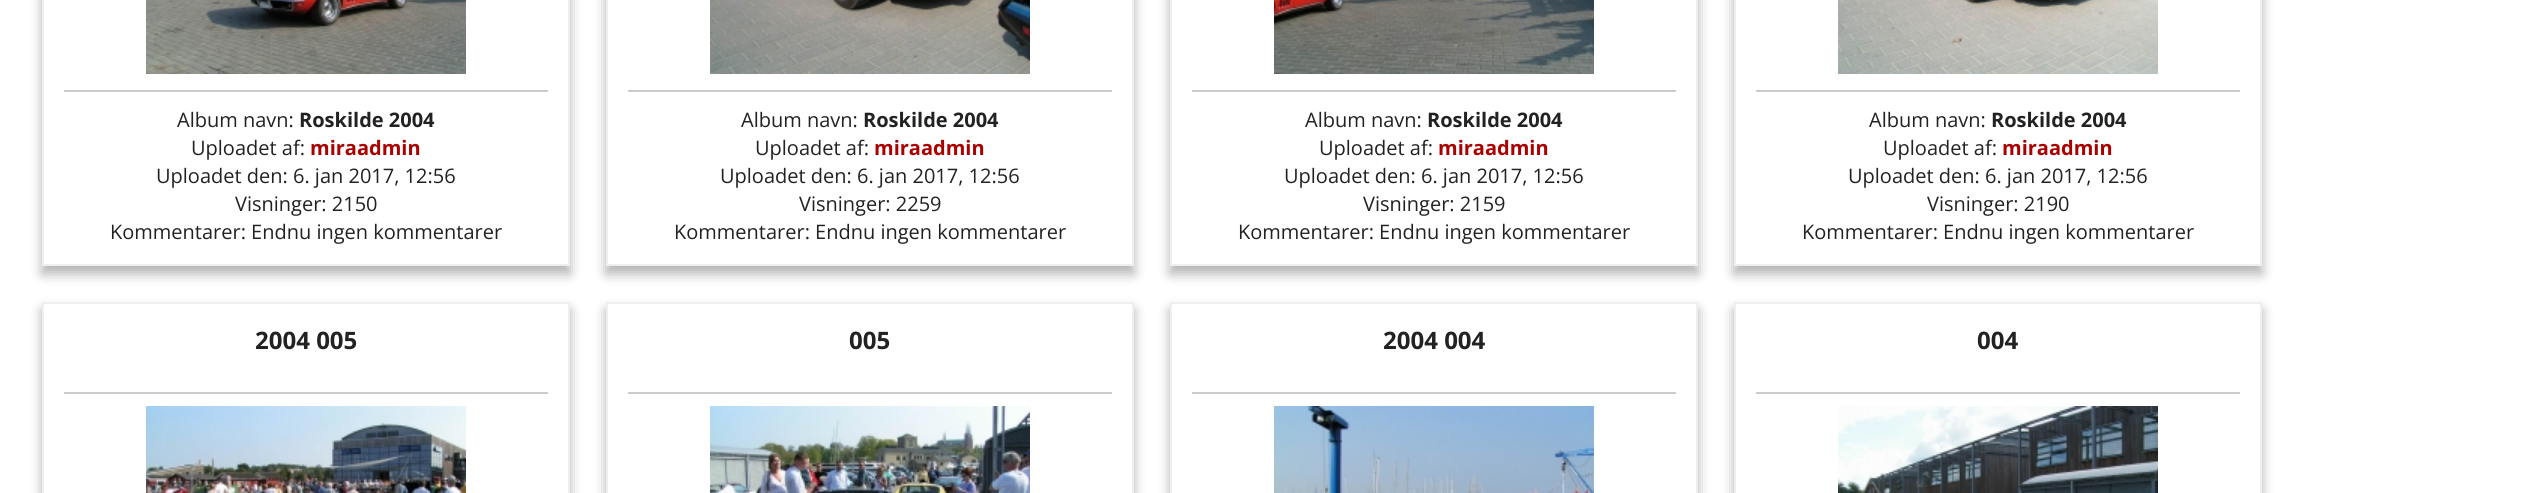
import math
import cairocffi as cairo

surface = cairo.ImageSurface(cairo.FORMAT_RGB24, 2530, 493)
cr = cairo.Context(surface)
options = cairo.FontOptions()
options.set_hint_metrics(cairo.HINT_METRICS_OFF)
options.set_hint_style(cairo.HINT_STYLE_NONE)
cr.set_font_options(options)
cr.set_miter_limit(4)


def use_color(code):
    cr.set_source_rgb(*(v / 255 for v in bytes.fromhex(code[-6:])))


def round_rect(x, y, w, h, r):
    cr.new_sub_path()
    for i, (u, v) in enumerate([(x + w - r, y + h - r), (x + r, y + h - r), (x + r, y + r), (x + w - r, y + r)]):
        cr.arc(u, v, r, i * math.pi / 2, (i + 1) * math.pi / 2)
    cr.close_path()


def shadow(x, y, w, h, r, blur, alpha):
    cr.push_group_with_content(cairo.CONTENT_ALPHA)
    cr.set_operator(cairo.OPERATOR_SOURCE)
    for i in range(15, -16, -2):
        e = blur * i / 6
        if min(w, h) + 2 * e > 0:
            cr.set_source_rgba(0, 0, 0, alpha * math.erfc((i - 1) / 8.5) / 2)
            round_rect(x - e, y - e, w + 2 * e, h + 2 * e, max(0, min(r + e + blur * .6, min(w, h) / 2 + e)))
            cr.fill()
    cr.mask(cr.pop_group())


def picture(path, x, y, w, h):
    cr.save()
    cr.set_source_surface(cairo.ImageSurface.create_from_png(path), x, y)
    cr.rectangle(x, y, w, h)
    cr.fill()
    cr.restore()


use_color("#ffffff")
cr.paint()
cr.save()
cr.set_fill_rule(cairo.FILL_RULE_EVEN_ODD)
cr.new_path()
cr.move_to(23, 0)
cr.line_to(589, 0)
cr.line_to(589, 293)
cr.line_to(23, 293)
cr.close_path()
cr.move_to(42, -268)
cr.line_to(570, -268)
cr.line_to(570, 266)
cr.line_to(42, 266)
cr.close_path()
cr.clip()
use_color("#000000")
shadow(42, -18, 528, 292, 0, 6, 0.3)
cr.restore()
cr.rectangle(43, -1, 526, 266)
use_color("#efefef")
cr.stroke()
picture("img1.png", 146, 0, 320, 74)
use_color("#cccccc")
cr.rectangle(64, 90, 484, 2)
cr.fill()
cr.select_font_face("Open Sans")
cr.set_font_size(20)
use_color("#222222")
cr.move_to(177, 127)
cr.show_text("Album navn:")
cr.select_font_face("Open Sans", cairo.FONT_SLANT_NORMAL, cairo.FONT_WEIGHT_BOLD)
cr.move_to(299, 127)
cr.show_text("Roskilde 2004")
cr.select_font_face("Open Sans")
cr.move_to(191, 155)
cr.show_text("Uploadet af:")
cr.select_font_face("Open Sans", cairo.FONT_SLANT_NORMAL, cairo.FONT_WEIGHT_BOLD)
use_color("#aa0000")
cr.move_to(310, 155)
cr.show_text("miraadmin")
cr.select_font_face("Open Sans")
use_color("#222222")
cr.move_to(156, 183)
cr.show_text("Uploadet den: 6. jan 2017, 12:56")
cr.move_to(235, 211)
cr.show_text("Visninger: 2150")
cr.move_to(110, 239)
cr.show_text("Kommentarer: Endnu ingen kommentarer")
cr.save()
cr.set_fill_rule(cairo.FILL_RULE_EVEN_ODD)
cr.new_path()
cr.move_to(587, 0)
cr.line_to(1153, 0)
cr.line_to(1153, 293)
cr.line_to(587, 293)
cr.close_path()
cr.move_to(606, -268)
cr.line_to(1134, -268)
cr.line_to(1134, 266)
cr.line_to(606, 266)
cr.close_path()
cr.clip()
use_color("#000000")
shadow(606, -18, 528, 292, 0, 6, 0.3)
cr.restore()
cr.rectangle(607, -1, 526, 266)
use_color("#efefef")
cr.stroke()
picture("img2.png", 710, 0, 320, 74)
use_color("#cccccc")
cr.rectangle(628, 90, 484, 2)
cr.fill()
use_color("#222222")
cr.move_to(741, 127)
cr.show_text("Album navn:")
cr.select_font_face("Open Sans", cairo.FONT_SLANT_NORMAL, cairo.FONT_WEIGHT_BOLD)
cr.move_to(863, 127)
cr.show_text("Roskilde 2004")
cr.select_font_face("Open Sans")
cr.move_to(755, 155)
cr.show_text("Uploadet af:")
cr.select_font_face("Open Sans", cairo.FONT_SLANT_NORMAL, cairo.FONT_WEIGHT_BOLD)
use_color("#aa0000")
cr.move_to(874, 155)
cr.show_text("miraadmin")
cr.select_font_face("Open Sans")
use_color("#222222")
cr.move_to(720, 183)
cr.show_text("Uploadet den: 6. jan 2017, 12:56")
cr.move_to(799, 211)
cr.show_text("Visninger: 2259")
cr.move_to(674, 239)
cr.show_text("Kommentarer: Endnu ingen kommentarer")
cr.save()
cr.set_fill_rule(cairo.FILL_RULE_EVEN_ODD)
cr.new_path()
cr.move_to(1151, 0)
cr.line_to(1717, 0)
cr.line_to(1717, 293)
cr.line_to(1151, 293)
cr.close_path()
cr.move_to(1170, -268)
cr.line_to(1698, -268)
cr.line_to(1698, 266)
cr.line_to(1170, 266)
cr.close_path()
cr.clip()
use_color("#000000")
shadow(1170, -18, 528, 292, 0, 6, 0.3)
cr.restore()
cr.rectangle(1171, -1, 526, 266)
use_color("#efefef")
cr.stroke()
picture("img3.png", 1274, 0, 320, 74)
use_color("#cccccc")
cr.rectangle(1192, 90, 484, 2)
cr.fill()
use_color("#222222")
cr.move_to(1305, 127)
cr.show_text("Album navn:")
cr.select_font_face("Open Sans", cairo.FONT_SLANT_NORMAL, cairo.FONT_WEIGHT_BOLD)
cr.move_to(1427, 127)
cr.show_text("Roskilde 2004")
cr.select_font_face("Open Sans")
cr.move_to(1319, 155)
cr.show_text("Uploadet af:")
cr.select_font_face("Open Sans", cairo.FONT_SLANT_NORMAL, cairo.FONT_WEIGHT_BOLD)
use_color("#aa0000")
cr.move_to(1438, 155)
cr.show_text("miraadmin")
cr.select_font_face("Open Sans")
use_color("#222222")
cr.move_to(1284, 183)
cr.show_text("Uploadet den: 6. jan 2017, 12:56")
cr.move_to(1363, 211)
cr.show_text("Visninger: 2159")
cr.move_to(1238, 239)
cr.show_text("Kommentarer: Endnu ingen kommentarer")
cr.save()
cr.set_fill_rule(cairo.FILL_RULE_EVEN_ODD)
cr.new_path()
cr.move_to(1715, 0)
cr.line_to(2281, 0)
cr.line_to(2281, 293)
cr.line_to(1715, 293)
cr.close_path()
cr.move_to(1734, -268)
cr.line_to(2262, -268)
cr.line_to(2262, 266)
cr.line_to(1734, 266)
cr.close_path()
cr.clip()
use_color("#000000")
shadow(1734, -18, 528, 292, 0, 6, 0.3)
cr.restore()
cr.rectangle(1735, -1, 526, 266)
use_color("#efefef")
cr.stroke()
picture("img4.png", 1838, 0, 320, 74)
use_color("#cccccc")
cr.rectangle(1756, 90, 484, 2)
cr.fill()
use_color("#222222")
cr.move_to(1869, 127)
cr.show_text("Album navn:")
cr.select_font_face("Open Sans", cairo.FONT_SLANT_NORMAL, cairo.FONT_WEIGHT_BOLD)
cr.move_to(1991, 127)
cr.show_text("Roskilde 2004")
cr.select_font_face("Open Sans")
cr.move_to(1883, 155)
cr.show_text("Uploadet af:")
cr.select_font_face("Open Sans", cairo.FONT_SLANT_NORMAL, cairo.FONT_WEIGHT_BOLD)
use_color("#aa0000")
cr.move_to(2002, 155)
cr.show_text("miraadmin")
cr.select_font_face("Open Sans")
use_color("#222222")
cr.move_to(1848, 183)
cr.show_text("Uploadet den: 6. jan 2017, 12:56")
cr.move_to(1927, 211)
cr.show_text("Visninger: 2190")
cr.move_to(1802, 239)
cr.show_text("Kommentarer: Endnu ingen kommentarer")
cr.save()
cr.set_fill_rule(cairo.FILL_RULE_EVEN_ODD)
cr.new_path()
cr.move_to(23, 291)
cr.line_to(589, 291)
cr.line_to(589, 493)
cr.line_to(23, 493)
cr.close_path()
cr.move_to(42, 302)
cr.line_to(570, 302)
cr.line_to(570, 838)
cr.line_to(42, 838)
cr.close_path()
cr.clip()
use_color("#000000")
shadow(42, 310, 528, 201, 0, 6, 0.3)
cr.restore()
cr.rectangle(43, 303, 526, 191)
use_color("#efefef")
cr.stroke()
cr.select_font_face("Open Sans", cairo.FONT_SLANT_NORMAL, cairo.FONT_WEIGHT_BOLD)
cr.set_font_size(24)
use_color("#222222")
cr.move_to(255, 349)
cr.show_text("2004 005")
use_color("#cccccc")
cr.rectangle(64, 392, 484, 2)
cr.fill()
picture("img5.png", 146, 406, 320, 87)
cr.save()
cr.set_fill_rule(cairo.FILL_RULE_EVEN_ODD)
cr.new_path()
cr.move_to(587, 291)
cr.line_to(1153, 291)
cr.line_to(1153, 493)
cr.line_to(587, 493)
cr.close_path()
cr.move_to(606, 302)
cr.line_to(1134, 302)
cr.line_to(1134, 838)
cr.line_to(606, 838)
cr.close_path()
cr.clip()
use_color("#000000")
shadow(606, 310, 528, 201, 0, 6, 0.3)
cr.restore()
cr.rectangle(607, 303, 526, 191)
use_color("#efefef")
cr.stroke()
use_color("#222222")
cr.move_to(849, 349)
cr.show_text("005")
use_color("#cccccc")
cr.rectangle(628, 392, 484, 2)
cr.fill()
picture("img6.png", 710, 406, 320, 87)
cr.save()
cr.set_fill_rule(cairo.FILL_RULE_EVEN_ODD)
cr.new_path()
cr.move_to(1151, 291)
cr.line_to(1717, 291)
cr.line_to(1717, 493)
cr.line_to(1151, 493)
cr.close_path()
cr.move_to(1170, 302)
cr.line_to(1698, 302)
cr.line_to(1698, 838)
cr.line_to(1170, 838)
cr.close_path()
cr.clip()
use_color("#000000")
shadow(1170, 310, 528, 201, 0, 6, 0.3)
cr.restore()
cr.rectangle(1171, 303, 526, 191)
use_color("#efefef")
cr.stroke()
use_color("#222222")
cr.move_to(1383, 349)
cr.show_text("2004 004")
use_color("#cccccc")
cr.rectangle(1192, 392, 484, 2)
cr.fill()
picture("img7.png", 1274, 406, 320, 87)
cr.save()
cr.set_fill_rule(cairo.FILL_RULE_EVEN_ODD)
cr.new_path()
cr.move_to(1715, 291)
cr.line_to(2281, 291)
cr.line_to(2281, 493)
cr.line_to(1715, 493)
cr.close_path()
cr.move_to(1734, 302)
cr.line_to(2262, 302)
cr.line_to(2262, 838)
cr.line_to(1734, 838)
cr.close_path()
cr.clip()
use_color("#000000")
shadow(1734, 310, 528, 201, 0, 6, 0.3)
cr.restore()
cr.rectangle(1735, 303, 526, 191)
use_color("#efefef")
cr.stroke()
use_color("#222222")
cr.move_to(1977, 349)
cr.show_text("004")
use_color("#cccccc")
cr.rectangle(1756, 392, 484, 2)
cr.fill()
picture("img8.png", 1838, 406, 320, 87)
surface.write_to_png("result.png")
